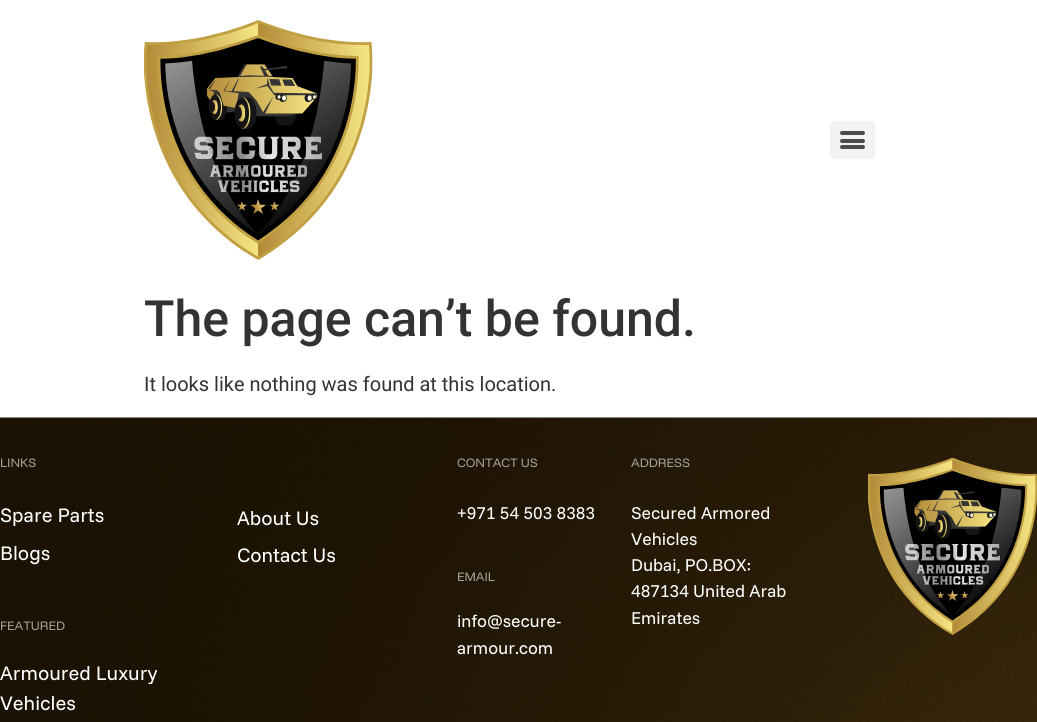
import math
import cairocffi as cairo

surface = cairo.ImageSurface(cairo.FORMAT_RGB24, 1037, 722)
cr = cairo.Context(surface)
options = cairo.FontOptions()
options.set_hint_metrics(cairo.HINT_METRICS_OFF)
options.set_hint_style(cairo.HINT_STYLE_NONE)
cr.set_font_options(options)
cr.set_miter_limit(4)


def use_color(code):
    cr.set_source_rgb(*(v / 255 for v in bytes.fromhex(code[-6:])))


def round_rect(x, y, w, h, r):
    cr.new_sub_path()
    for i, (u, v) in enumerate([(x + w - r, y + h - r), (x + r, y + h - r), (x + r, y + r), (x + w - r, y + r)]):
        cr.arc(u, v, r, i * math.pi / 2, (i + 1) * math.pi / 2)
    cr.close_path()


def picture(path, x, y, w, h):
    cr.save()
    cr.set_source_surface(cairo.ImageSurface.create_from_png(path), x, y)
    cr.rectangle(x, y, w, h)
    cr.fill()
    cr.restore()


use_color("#ffffff")
cr.paint()
picture("img1.png", 144, 20, 229, 240)
use_color("#f2f2f2")
round_rect(830, 121, 45, 38, 4)
cr.fill()
use_color("#494c4f")
round_rect(840, 139, 25, 4, 2)
cr.fill()
round_rect(840, 131, 25, 4, 2)
cr.fill()
round_rect(840, 145, 25, 4, 2)
cr.fill()
cr.select_font_face("Roboto Medium")
cr.set_font_size(50)
use_color("#333333")
cr.move_to(144, 336)
cr.show_text("The page can’t be found.")
cr.select_font_face("Roboto")
cr.set_font_size(20)
cr.move_to(144, 391)
cr.show_text("It looks like nothing was found at this location.")
picture("img2.png", 0, 417, 1037, 305)
cr.select_font_face("Funnel Display")
cr.set_font_size(12.5)
use_color("#a4a09a")
cr.move_to(0, 467)
cr.show_text("LINKS")
cr.select_font_face("Funnel Sans")
cr.set_font_size(20)
use_color("#ffffff")
cr.move_to(0, 522)
cr.show_text("Spare Parts")
cr.move_to(0, 560)
cr.show_text("Blogs")
cr.select_font_face("Funnel Display")
cr.set_font_size(12.5)
use_color("#a4a09a")
cr.move_to(0, 630)
cr.show_text("FEATURED")
cr.select_font_face("Funnel Sans")
cr.set_font_size(20)
use_color("#ffffff")
cr.move_to(0, 680)
cr.show_text("Armoured Luxury")
cr.move_to(0, 710)
cr.show_text("Vehicles")
cr.move_to(237, 525)
cr.show_text("About Us")
cr.move_to(237, 562)
cr.show_text("Contact Us")
cr.select_font_face("Funnel Display")
cr.set_font_size(12.5)
use_color("#a4a09a")
cr.move_to(457, 467)
cr.show_text("CONTACT US")
cr.select_font_face("Funnel Sans")
cr.set_font_size(17.5)
use_color("#ffffff")
cr.move_to(457, 519)
cr.show_text("+971 54 503 8383")
cr.select_font_face("Funnel Display")
cr.set_font_size(12.5)
use_color("#a4a09a")
cr.move_to(457, 581)
cr.show_text("EMAIL")
cr.select_font_face("Funnel Sans")
cr.set_font_size(17.5)
use_color("#ffffff")
cr.move_to(457, 627)
cr.show_text("info@secure-")
cr.move_to(457, 654)
cr.show_text("armour.com")
cr.select_font_face("Funnel Display")
cr.set_font_size(12.5)
use_color("#a4a09a")
cr.move_to(631, 467)
cr.show_text("ADDRESS")
cr.select_font_face("Funnel Sans")
cr.set_font_size(17.5)
use_color("#ffffff")
cr.move_to(631, 519)
cr.show_text("Secured Armored")
cr.move_to(631, 545)
cr.show_text("Vehicles")
cr.move_to(631, 571)
cr.show_text("Dubai, PO.BOX:")
cr.move_to(631, 597)
cr.show_text("487134 United Arab")
cr.move_to(631, 624)
cr.show_text("Emirates")
picture("img3.png", 868, 458, 169, 177)
surface.write_to_png("result.png")
